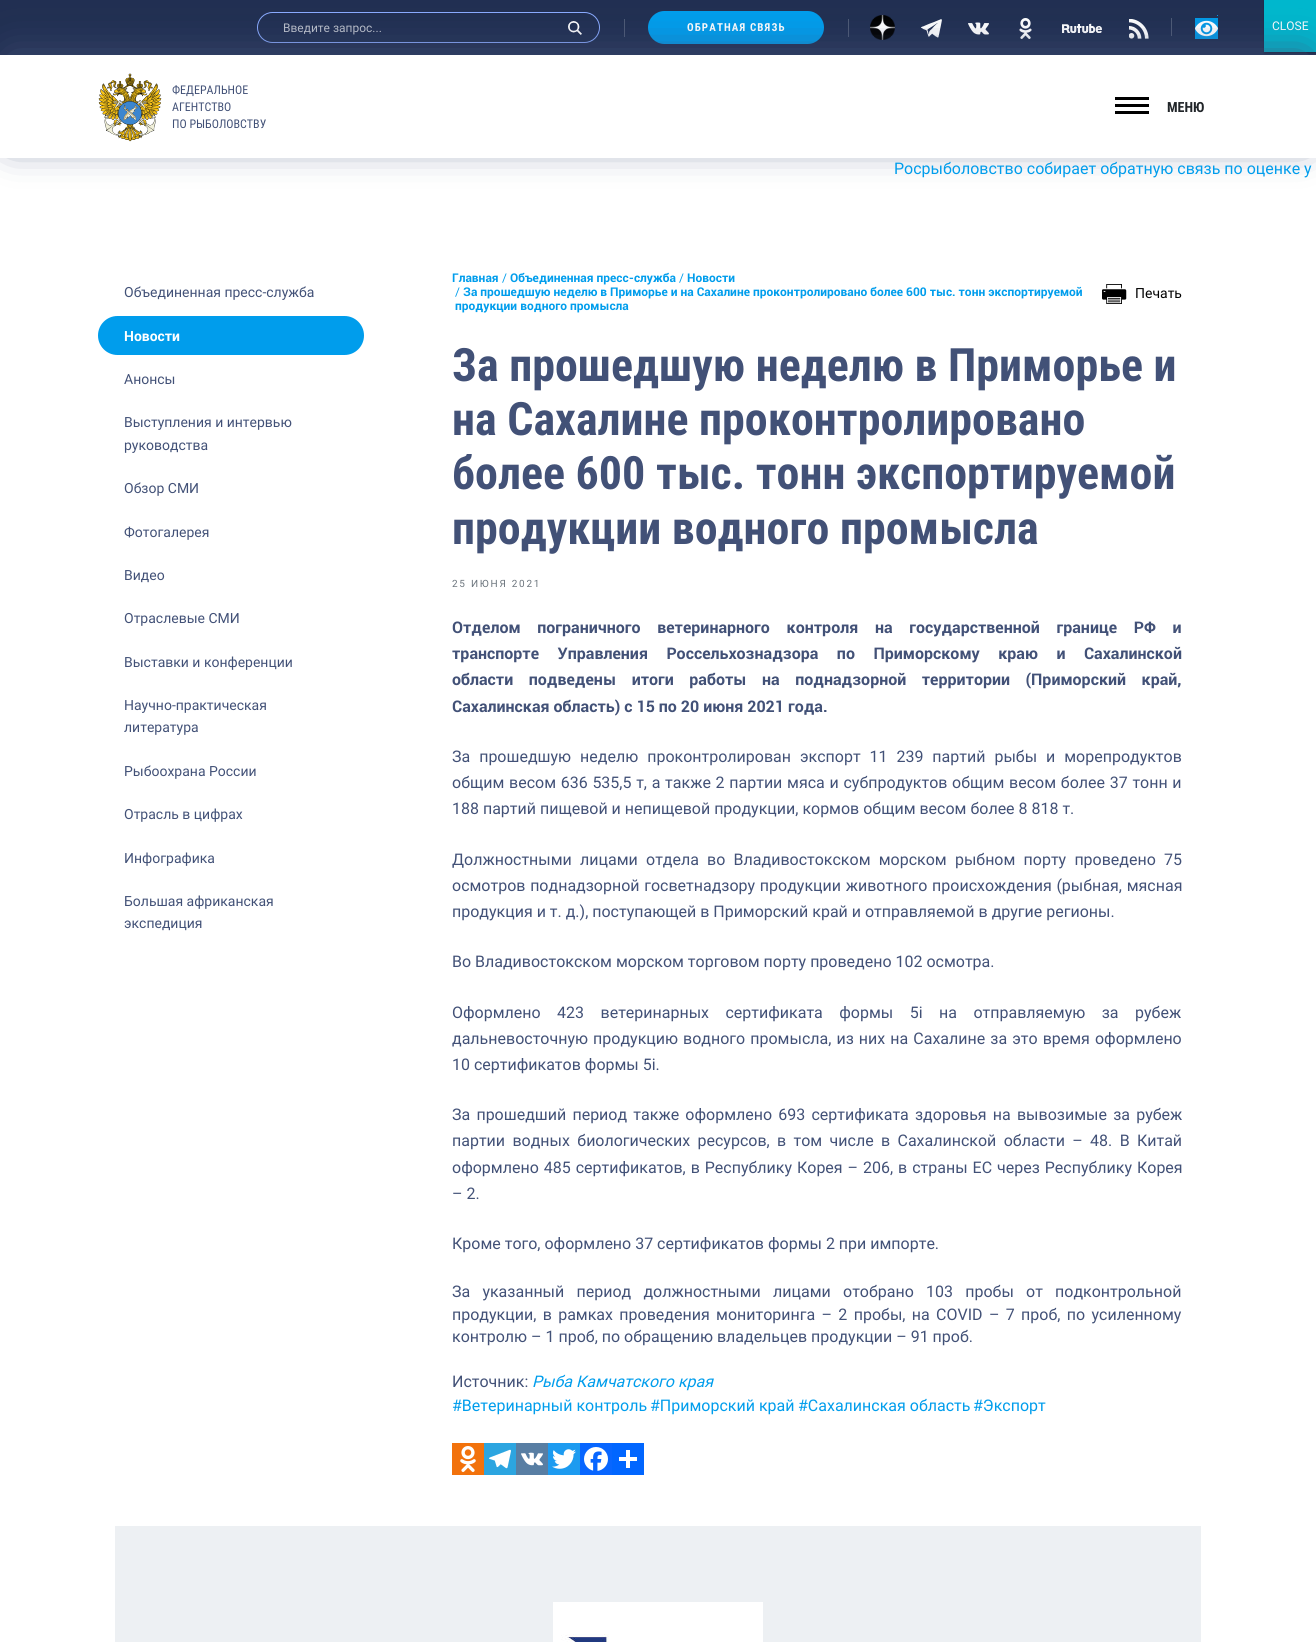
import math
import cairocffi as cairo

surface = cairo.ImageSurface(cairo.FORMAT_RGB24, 1316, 1642)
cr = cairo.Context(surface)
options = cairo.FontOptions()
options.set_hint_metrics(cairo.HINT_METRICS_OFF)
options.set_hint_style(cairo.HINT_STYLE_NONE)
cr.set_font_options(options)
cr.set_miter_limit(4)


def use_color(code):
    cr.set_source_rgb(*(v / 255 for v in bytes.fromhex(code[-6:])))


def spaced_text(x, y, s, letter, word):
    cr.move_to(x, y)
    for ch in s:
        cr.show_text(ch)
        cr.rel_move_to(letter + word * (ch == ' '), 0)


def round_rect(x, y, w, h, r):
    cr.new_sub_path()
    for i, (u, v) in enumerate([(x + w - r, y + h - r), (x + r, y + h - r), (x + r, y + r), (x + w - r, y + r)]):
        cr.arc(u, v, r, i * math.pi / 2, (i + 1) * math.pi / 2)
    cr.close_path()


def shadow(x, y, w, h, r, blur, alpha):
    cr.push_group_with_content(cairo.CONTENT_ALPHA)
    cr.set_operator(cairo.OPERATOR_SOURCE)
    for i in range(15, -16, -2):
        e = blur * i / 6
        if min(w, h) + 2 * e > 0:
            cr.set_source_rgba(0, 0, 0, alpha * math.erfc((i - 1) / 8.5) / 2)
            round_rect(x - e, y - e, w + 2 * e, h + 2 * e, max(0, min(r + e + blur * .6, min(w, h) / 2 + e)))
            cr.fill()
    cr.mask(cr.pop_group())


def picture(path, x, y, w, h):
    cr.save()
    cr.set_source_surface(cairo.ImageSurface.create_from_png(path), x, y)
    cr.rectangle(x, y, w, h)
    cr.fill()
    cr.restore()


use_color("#ffffff")
cr.paint()
use_color("#212f52")
cr.rectangle(0, 0, 1316, 55)
cr.fill()
use_color("#020202")
shadow(1265, 1, 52, 52, 0, 1.5, 0.23)
shadow(1265, 1, 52, 52, 0, 1.5, 0.23)
use_color("#00b7cd")
cr.rectangle(1264, 0, 52, 52)
cr.fill()
cr.select_font_face("Roboto")
cr.set_font_size(12)
use_color("#ffffff")
cr.move_to(1272, 30)
cr.show_text("CLOSE")
round_rect(257.5, 12.5, 342, 30, 15)
use_color("#89aaff")
cr.set_line_width(1)
cr.stroke()
use_color("#bcc1cb")
cr.move_to(283, 32)
cr.show_text("Введите запрос...")
picture("img1.png", 568, 21, 14, 14)
use_color("#4d5975")
cr.rectangle(624, 19, 1, 18)
cr.fill()
use_color("#009dec")
round_rect(649, 12, 174, 31, 15.5)
cr.fill_preserve()
cr.set_line_width(2)
cr.stroke()
cr.select_font_face("Roboto Condensed", cairo.FONT_SLANT_NORMAL, cairo.FONT_WEIGHT_BOLD)
cr.set_font_size(11)
use_color("#ffffff")
spaced_text(687, 31, "ОБРАТНАЯ СВЯЗЬ", 1.1, 0)
use_color("#4d5975")
cr.rectangle(848, 19, 1, 18)
cr.fill()
picture("img2.png", 870, 15, 25, 25)
picture("img3.png", 921, 19, 21, 19)
picture("img4.png", 968, 22, 21, 13)
picture("img5.png", 1019, 18, 13, 21)
picture("img6.png", 1062, 23, 40, 11)
picture("img7.png", 1129, 19, 20, 20)
cr.rectangle(1171, 18, 1, 18)
cr.fill()
use_color("#0299e7")
cr.rectangle(1195, 18, 23, 21)
cr.fill()
cr.rectangle(1217, 15, 1, 1)
cr.fill()
picture("img8.png", 1195, 20, 23, 17)
use_color("#425177")
shadow(11, 58, 1294, 81, 0, 20, 1)
use_color("#ffffff")
cr.rectangle(0, 55, 1316, 103)
cr.fill()
picture("img9.png", 98, 73, 64, 69)
cr.select_font_face("Roboto Condensed")
cr.set_font_size(12)
use_color("#425177")
cr.move_to(172, 94)
cr.show_text("ФЕДЕРАЛЬНОЕ")
cr.move_to(172, 111)
cr.show_text("АГЕНТСТВО")
cr.move_to(172, 128)
cr.show_text("ПО РЫБОЛОВСТВУ")
use_color("#000000")
cr.rectangle(1115, 97, 34, 3)
cr.fill()
cr.rectangle(1115, 104, 34, 3)
cr.fill()
cr.rectangle(1115, 111, 34, 3)
cr.fill()
cr.select_font_face("Roboto Condensed", cairo.FONT_SLANT_NORMAL, cairo.FONT_WEIGHT_BOLD)
cr.set_font_size(14)
use_color("#212529")
cr.move_to(1167, 112)
cr.show_text("МЕНЮ")
cr.select_font_face("Roboto")
cr.set_font_size(16)
use_color("#009dec")
cr.move_to(894, 174)
cr.show_text("Росрыболовство собирает обратную связь по оценке у")
cr.set_font_size(14)
use_color("#425177")
cr.move_to(124, 297)
cr.show_text("Объединенная пресс-служба")
use_color("#009dec")
round_rect(98, 316, 266, 39, 19.5)
cr.fill()
cr.select_font_face("Roboto", cairo.FONT_SLANT_NORMAL, cairo.FONT_WEIGHT_BOLD)
use_color("#ffffff")
cr.move_to(124, 341)
cr.show_text("Новости")
cr.select_font_face("Roboto")
use_color("#425177")
cr.move_to(124, 384)
cr.show_text("Анонсы")
cr.move_to(124, 427)
cr.show_text("Выступления и интервью")
cr.move_to(124, 450)
cr.show_text("руководства")
cr.move_to(124, 493)
cr.show_text("Обзор СМИ")
cr.move_to(124, 537)
cr.show_text("Фотогалерея")
cr.move_to(124, 580)
cr.show_text("Видео")
cr.move_to(124, 623)
cr.show_text("Отраслевые СМИ")
cr.move_to(124, 667)
cr.show_text("Выставки и конференции")
cr.move_to(124, 710)
cr.show_text("Научно-практическая")
cr.move_to(124, 732)
cr.show_text("литература")
cr.move_to(124, 776)
cr.show_text("Рыбоохрана России")
cr.move_to(124, 819)
cr.show_text("Отрасль в цифрах")
cr.move_to(124, 863)
cr.show_text("Инфографика")
cr.move_to(124, 906)
cr.show_text("Большая африканская")
cr.move_to(124, 928)
cr.show_text("экспедиция")
cr.select_font_face("Roboto", cairo.FONT_SLANT_NORMAL, cairo.FONT_WEIGHT_BOLD)
cr.set_font_size(12)
use_color("#009dec")
cr.move_to(452, 282)
cr.show_text("Главная")
cr.select_font_face("Roboto")
cr.move_to(502, 282)
cr.show_text("/")
cr.select_font_face("Roboto", cairo.FONT_SLANT_NORMAL, cairo.FONT_WEIGHT_BOLD)
cr.move_to(510, 282)
cr.show_text("Объединенная пресс-служба")
cr.select_font_face("Roboto")
cr.move_to(679, 282)
cr.show_text("/")
cr.select_font_face("Roboto", cairo.FONT_SLANT_NORMAL, cairo.FONT_WEIGHT_BOLD)
cr.move_to(687, 282)
cr.show_text("Новости")
cr.select_font_face("Roboto")
cr.move_to(455, 296)
cr.show_text("/")
cr.select_font_face("Roboto", cairo.FONT_SLANT_NORMAL, cairo.FONT_WEIGHT_BOLD)
cr.move_to(463, 296)
cr.show_text("За прошедшую неделю в Приморье и на Сахалине проконтролировано более 600 тыс. тонн экспортируемой")
cr.move_to(455, 310)
cr.show_text("продукции водного промысла")
picture("img10.png", 1102, 284, 25, 20)
cr.select_font_face("Roboto")
cr.set_font_size(14)
use_color("#000000")
cr.move_to(1135, 298)
cr.show_text("Печать")
cr.select_font_face("Roboto Condensed", cairo.FONT_SLANT_NORMAL, cairo.FONT_WEIGHT_BOLD)
cr.set_font_size(46)
use_color("#425177")
cr.move_to(452, 381)
cr.show_text("За прошедшую неделю в Приморье и")
cr.move_to(452, 435)
cr.show_text("на Сахалине проконтролировано")
cr.move_to(452, 489)
cr.show_text("более 600 тыс. тонн экспортируемой")
cr.move_to(452, 544)
cr.show_text("продукции водного промысла")
cr.select_font_face("Roboto")
cr.set_font_size(10)
use_color("#6c757d")
spaced_text(452, 587, "25 ИЮНЯ 2021", 1.75, 0)
cr.select_font_face("Roboto", cairo.FONT_SLANT_NORMAL, cairo.FONT_WEIGHT_BOLD)
cr.set_font_size(16)
use_color("#425177")
spaced_text(452, 633, "Отделом пограничного ветеринарного контроля на государственной границе РФ и", 0, 12.75)
spaced_text(452, 659, "транспорте Управления Россельхознадзора по Приморскому краю и Сахалинской", 0, 14.5)
spaced_text(452, 685, "области подведены итоги работы на поднадзорной территории (Приморский край,", 0, 11.5)
cr.move_to(452, 712)
cr.show_text("Сахалинская область) с 15 по 20 июня 2021 года.")
cr.select_font_face("Roboto")
spaced_text(452, 762, "За прошедшую неделю проконтролирован экспорт 11 239 партий рыбы и морепродуктов", 0, 5)
spaced_text(452, 788, "общим весом 636 535,5 т, а также 2 партии мяса и субпродуктов общим весом более 37 тонн и", 0, 0.75)
cr.move_to(452, 814)
cr.show_text("188 партий пищевой и непищевой продукции, кормов общим весом более 8 818 т.")
spaced_text(452, 865, "Должностными лицами отдела во Владивостокском морском рыбном порту проведено 75", 0, 4.25)
spaced_text(452, 891, "осмотров поднадзорной госветнадзору продукции животного происхождения (рыбная, мясная", 0, 0.75)
cr.move_to(452, 917)
cr.show_text("продукция и т. д.), поступающей в Приморский край и отправляемой в другие регионы.")
cr.move_to(452, 967)
cr.show_text("Во Владивостокском морском торговом порту проведено 102 осмотра.")
spaced_text(452, 1018, "Оформлено 423 ветеринарных сертификата формы 5i на отправляемую за рубеж", 0, 12.5)
spaced_text(452, 1044, "дальневосточную продукцию водного промысла, из них на Сахалине за это время оформлено", 0, 1.1)
cr.move_to(452, 1070)
cr.show_text("10 сертификатов формы 5i.")
spaced_text(452, 1120, "За прошедший период также оформлено 693 сертификата здоровья на вывозимые за рубеж", 0, 2.25)
spaced_text(452, 1146, "партии водных биологических ресурсов, в том числе в Сахалинской области – 48. В Китай", 0, 3.4)
spaced_text(452, 1173, "оформлено 485 сертификатов, в Республику Корея – 206, в страны ЕС через Республику Корея", 0, 1)
cr.move_to(452, 1199)
cr.show_text("– 2.")
cr.move_to(452, 1249)
cr.show_text("Кроме того, оформлено 37 сертификатов формы 2 при импорте.")
spaced_text(452, 1297, "За указанный период должностными лицами отобрано 103 пробы от подконтрольной", 0, 8.25)
spaced_text(452, 1320, "продукции, в рамках проведения мониторинга – 2 пробы, на COVID – 7 проб, по усиленному", 0, 2.4)
cr.move_to(452, 1342)
cr.show_text("контролю – 1 проб, по обращению владельцев продукции – 91 проб.")
cr.move_to(452, 1387)
cr.show_text("Источник:")
cr.select_font_face("Roboto", cairo.FONT_SLANT_ITALIC)
use_color("#009dec")
cr.move_to(532, 1387)
cr.show_text("Рыба Камчатского края")
cr.select_font_face("Roboto")
cr.move_to(452, 1411)
cr.show_text("#Ветеринарный контроль")
cr.move_to(650, 1411)
cr.show_text("#Приморский край")
cr.move_to(798, 1411)
cr.show_text("#Сахалинская область")
cr.move_to(973, 1411)
cr.show_text("#Экспорт")
use_color("#f2720c")
cr.rectangle(452, 1443, 32, 32)
cr.fill()
picture("img11.png", 460, 1446, 16, 26)
use_color("#2ca5e0")
cr.rectangle(484, 1443, 32, 32)
cr.fill()
picture("img12.png", 489, 1449, 22, 20)
use_color("#587ea3")
cr.rectangle(516, 1443, 32, 32)
cr.fill()
picture("img13.png", 521, 1452, 22, 14)
use_color("#1d9bf0")
cr.rectangle(548, 1443, 32, 32)
cr.fill()
picture("img14.png", 552, 1449, 24, 20)
use_color("#0866ff")
cr.rectangle(580, 1443, 32, 32)
cr.fill()
picture("img15.png", 584, 1447, 24, 24)
use_color("#0166ff")
cr.rectangle(612, 1443, 32, 32)
cr.fill()
use_color("#ffffff")
cr.rectangle(626, 1450, 4, 18)
cr.fill()
cr.rectangle(619, 1457, 18, 4)
cr.fill()
use_color("#edf0f3")
cr.rectangle(115, 1526, 1086, 116)
cr.fill()
picture("img16.png", 553, 1602, 210, 40)
surface.write_to_png("result.png")
